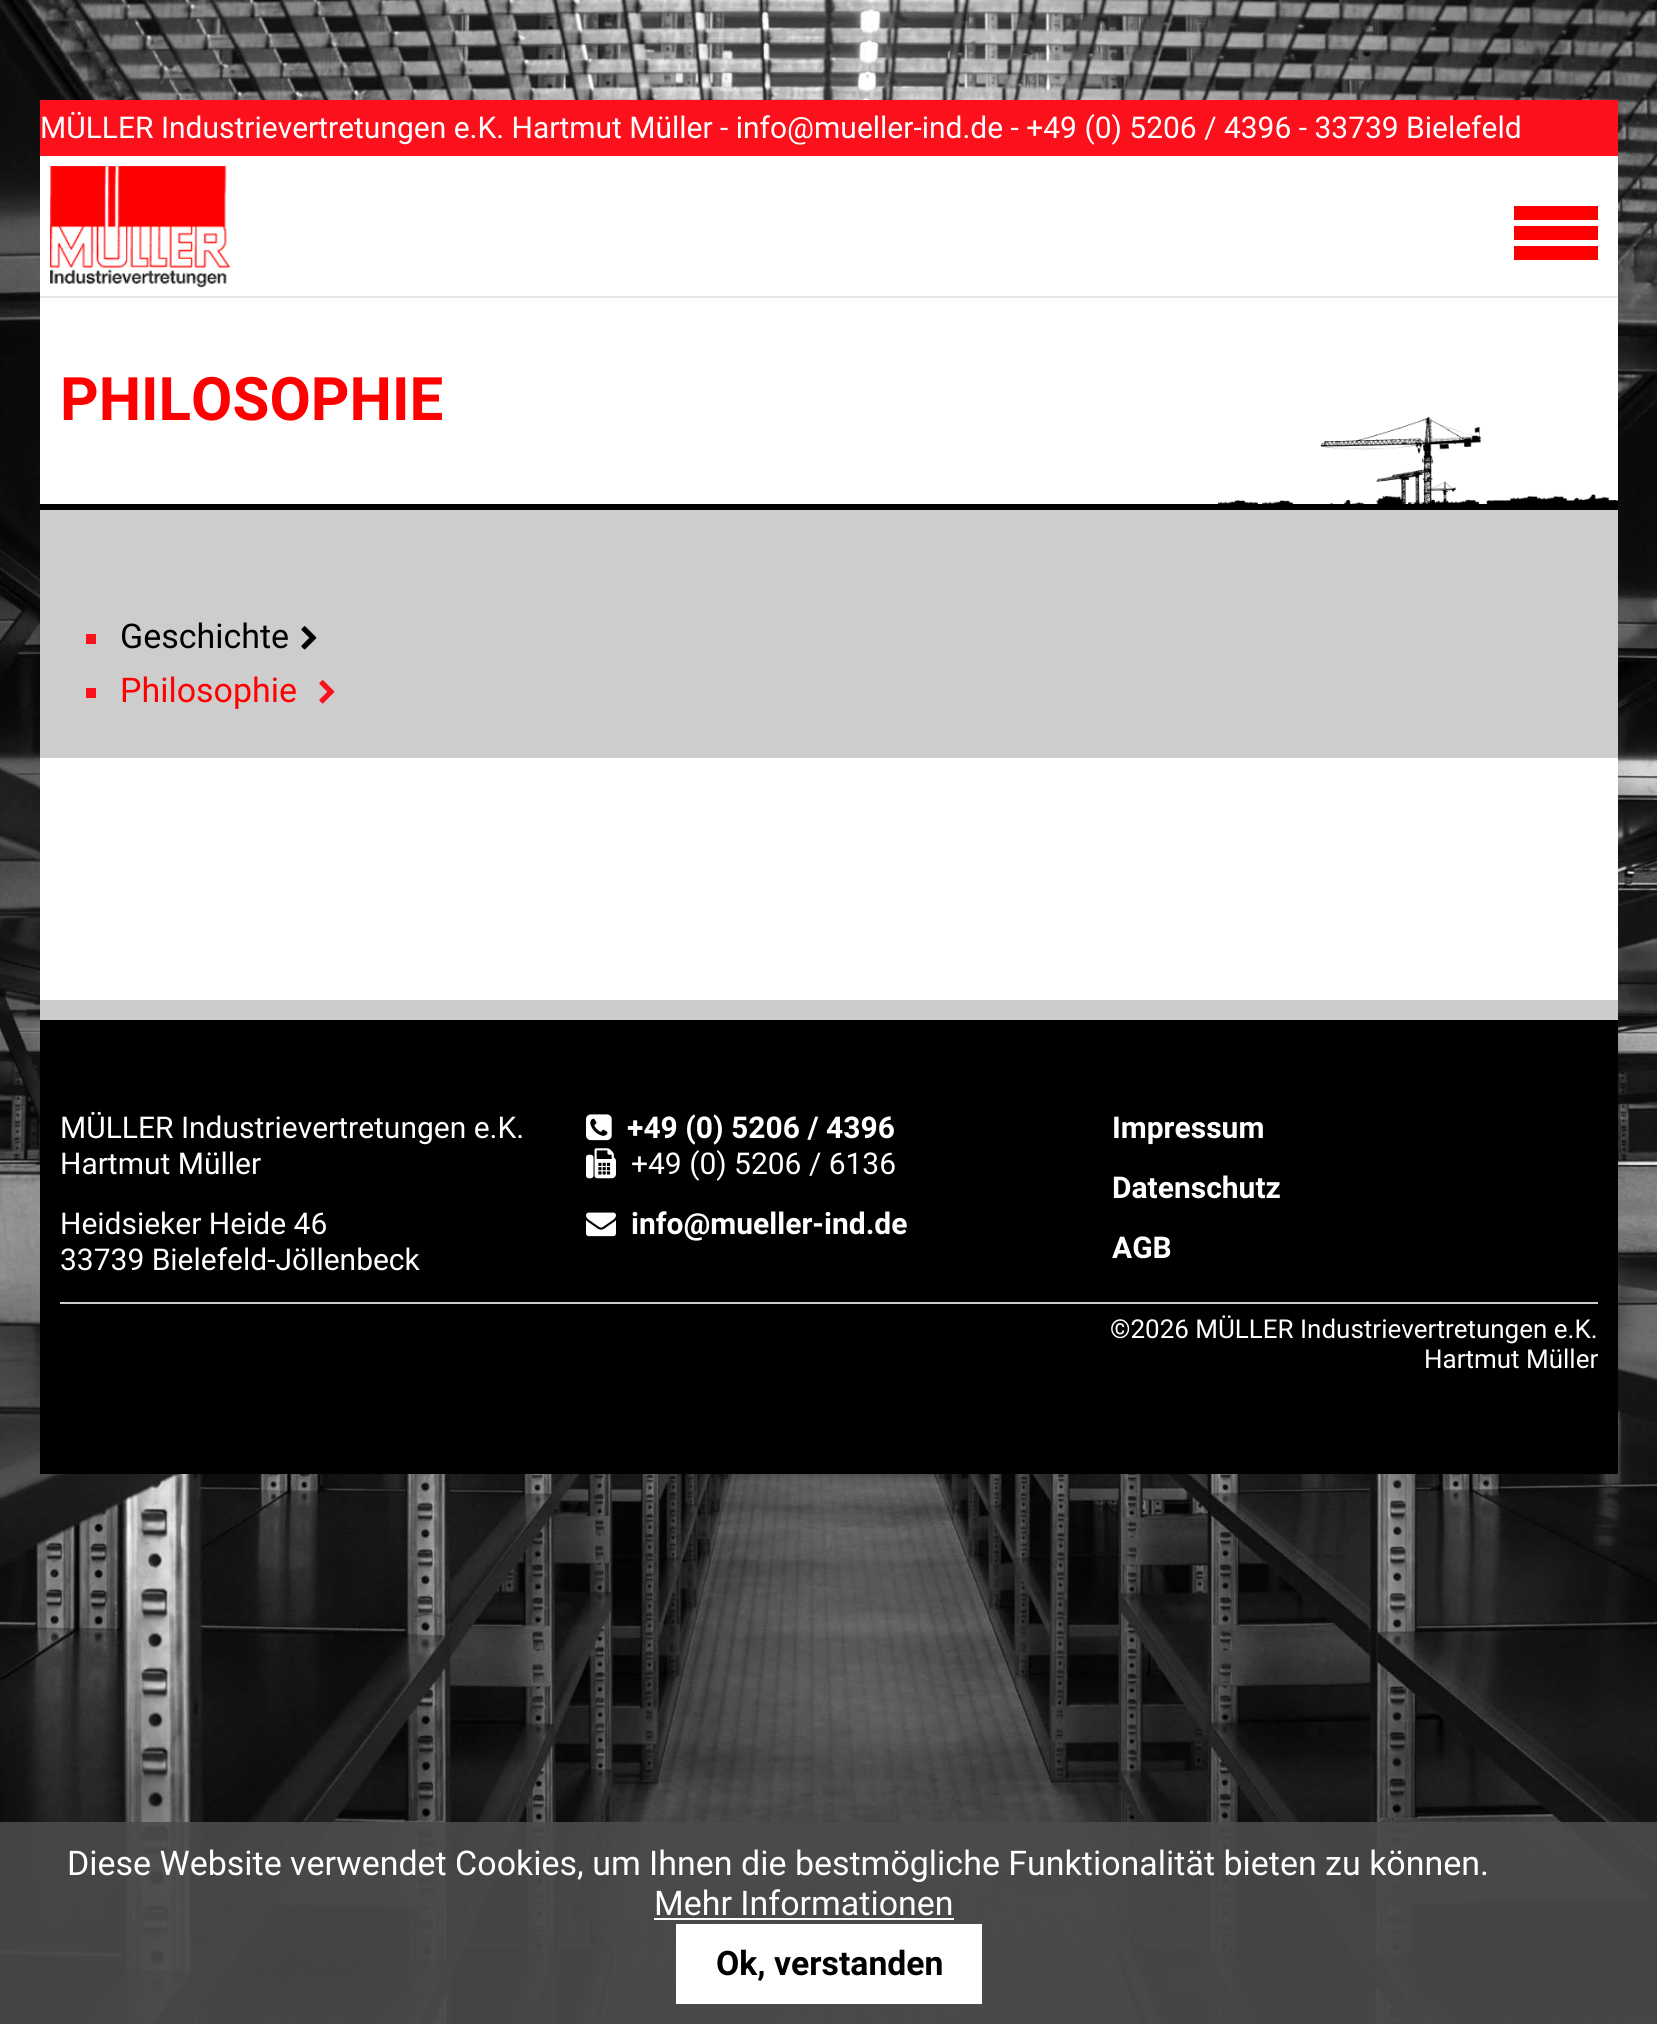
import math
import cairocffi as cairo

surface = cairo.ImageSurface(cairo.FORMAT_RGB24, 1657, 2024)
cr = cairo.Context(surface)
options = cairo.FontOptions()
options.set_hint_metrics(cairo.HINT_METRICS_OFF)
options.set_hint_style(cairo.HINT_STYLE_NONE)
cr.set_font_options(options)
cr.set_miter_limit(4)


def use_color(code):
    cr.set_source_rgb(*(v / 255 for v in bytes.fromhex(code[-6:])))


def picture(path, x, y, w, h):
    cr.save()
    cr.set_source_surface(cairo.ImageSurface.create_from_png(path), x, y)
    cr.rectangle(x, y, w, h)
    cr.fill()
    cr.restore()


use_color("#ffffff")
cr.paint()
picture("img1.png", 0, 0, 1657, 2024)
use_color("#ffffff")
cr.rectangle(40, 156, 1578, 844)
cr.fill()
use_color("#e6e6e6")
cr.rectangle(40, 296, 1578, 2)
cr.fill()
use_color("#fc101b")
cr.rectangle(40, 100, 1578, 56)
cr.fill()
cr.select_font_face("Roboto")
cr.set_font_size(30)
use_color("#ffffff")
cr.move_to(40, 138)
cr.show_text("MÜLLER Industrievertretungen e.K. Hartmut Müller - info@mueller-ind.de - +49 (0) 5206 / 4396 - 33739 Bielefeld")
picture("img2.png", 50, 166, 180, 122)
use_color("#ff0000")
cr.rectangle(1514, 206, 84, 14)
cr.fill()
cr.rectangle(1514, 226, 84, 14)
cr.fill()
cr.rectangle(1514, 246, 84, 14)
cr.fill()
picture("img3.png", 1218, 416, 400, 88)
use_color("#000000")
cr.rectangle(40, 504, 1578, 6)
cr.fill()
cr.select_font_face("Roboto", cairo.FONT_SLANT_NORMAL, cairo.FONT_WEIGHT_BOLD)
cr.set_font_size(60)
use_color("#ff0000")
cr.move_to(60, 420)
cr.show_text("PHILOSOPHIE")
use_color("#cdcdcd")
cr.rectangle(40, 510, 1578, 248)
cr.fill()
use_color("#fc101b")
cr.rectangle(86, 634, 10, 10)
cr.fill()
cr.select_font_face("Roboto")
cr.set_font_size(34)
use_color("#000000")
cr.move_to(120, 648)
cr.show_text("Geschichte")
picture("img4.png", 301, 626, 16, 24)
use_color("#fc101b")
cr.rectangle(86, 688, 10, 10)
cr.fill()
use_color("#ff0000")
cr.move_to(120, 702)
cr.show_text("Philosophie")
picture("img5.png", 319, 680, 16, 24)
use_color("#000000")
cr.rectangle(40, 1020, 1578, 454)
cr.fill()
use_color("#cccccc")
cr.rectangle(40, 1000, 1578, 20)
cr.fill()
cr.set_font_size(30)
use_color("#ffffff")
cr.move_to(60, 1138)
cr.show_text("MÜLLER Industrievertretungen e.K.")
cr.move_to(60, 1174)
cr.show_text("Hartmut Müller")
cr.move_to(60, 1234)
cr.show_text("Heidsieker Heide 46")
cr.move_to(60, 1270)
cr.show_text("33739 Bielefeld-Jöllenbeck")
picture("img6.png", 586, 1114, 26, 27)
cr.select_font_face("Roboto", cairo.FONT_SLANT_NORMAL, cairo.FONT_WEIGHT_BOLD)
cr.move_to(627, 1138)
cr.show_text("+49 (0) 5206 / 4396")
picture("img7.png", 586, 1148, 30, 31)
cr.select_font_face("Roboto")
cr.move_to(631, 1174)
cr.show_text("+49 (0) 5206 / 6136")
picture("img8.png", 586, 1212, 30, 25)
cr.select_font_face("Roboto", cairo.FONT_SLANT_NORMAL, cairo.FONT_WEIGHT_BOLD)
cr.move_to(631, 1234)
cr.show_text("info@mueller-ind.de")
cr.move_to(1112, 1138)
cr.show_text("Impressum")
cr.move_to(1112, 1198)
cr.show_text("Datenschutz")
cr.move_to(1112, 1258)
cr.show_text("AGB")
use_color("#cccccc")
cr.rectangle(60, 1302, 1538, 2)
cr.fill()
cr.select_font_face("Roboto")
cr.set_font_size(26)
use_color("#ffffff")
cr.move_to(1110, 1338)
cr.show_text("©2026 MÜLLER Industrievertretungen e.K.")
cr.move_to(1424, 1368)
cr.show_text("Hartmut Müller")
cr.set_source_rgba(0.294, 0.294, 0.294, 0.9)
cr.rectangle(0, 1822, 1657, 202)
cr.fill()
cr.set_font_size(34)
use_color("#ffffff")
cr.move_to(67, 1875)
cr.show_text("Diese Website verwendet Cookies, um Ihnen die bestmögliche Funktionalität bieten zu können.")
cr.move_to(654, 1915)
cr.show_text("Mehr Informationen")
cr.rectangle(654, 1918, 300, 2)
cr.fill()
cr.rectangle(676, 1924, 306, 80)
cr.fill()
cr.select_font_face("Roboto", cairo.FONT_SLANT_NORMAL, cairo.FONT_WEIGHT_BOLD)
cr.set_font_size(33.75)
use_color("#000000")
cr.move_to(716, 1975)
cr.show_text("Ok, verstanden")
surface.write_to_png("result.png")
